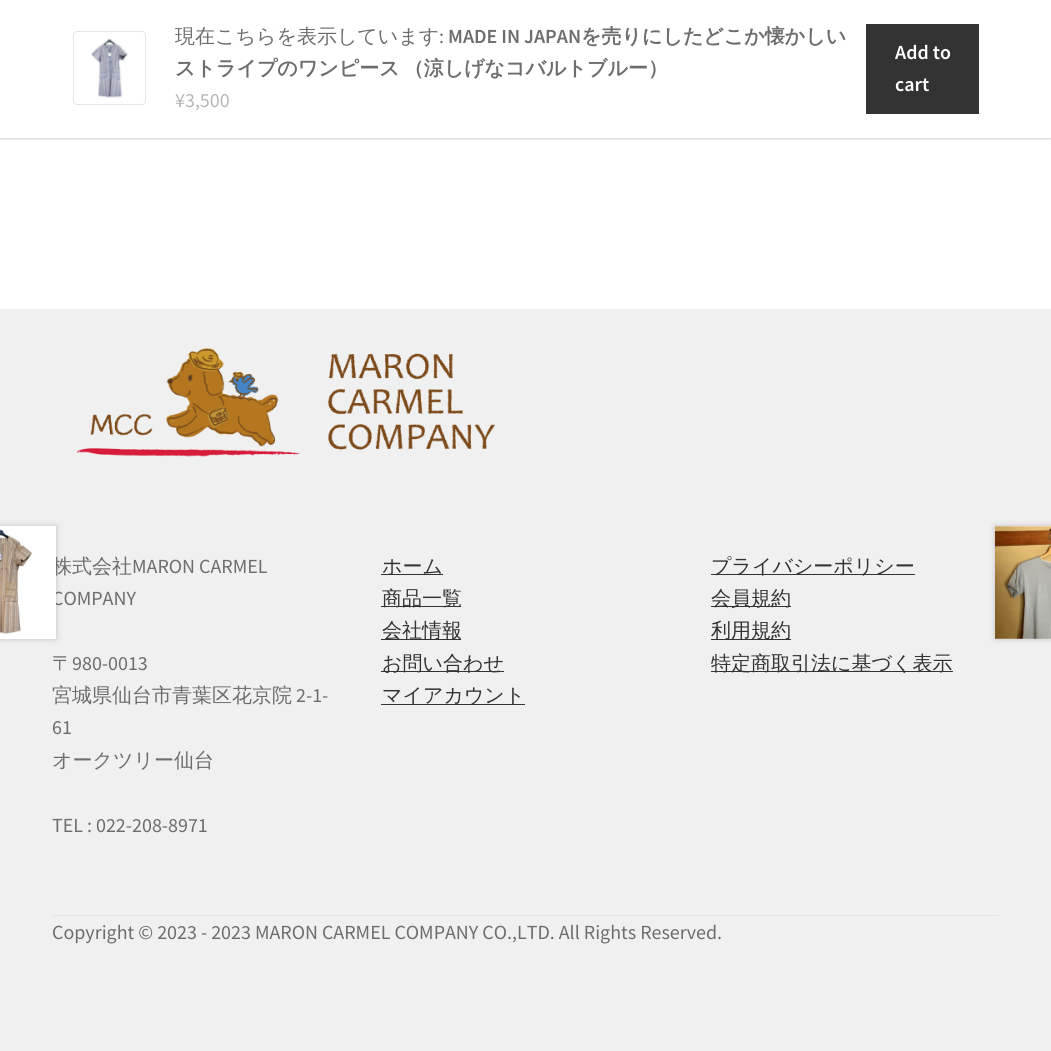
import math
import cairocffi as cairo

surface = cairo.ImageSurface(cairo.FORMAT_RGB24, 1051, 1051)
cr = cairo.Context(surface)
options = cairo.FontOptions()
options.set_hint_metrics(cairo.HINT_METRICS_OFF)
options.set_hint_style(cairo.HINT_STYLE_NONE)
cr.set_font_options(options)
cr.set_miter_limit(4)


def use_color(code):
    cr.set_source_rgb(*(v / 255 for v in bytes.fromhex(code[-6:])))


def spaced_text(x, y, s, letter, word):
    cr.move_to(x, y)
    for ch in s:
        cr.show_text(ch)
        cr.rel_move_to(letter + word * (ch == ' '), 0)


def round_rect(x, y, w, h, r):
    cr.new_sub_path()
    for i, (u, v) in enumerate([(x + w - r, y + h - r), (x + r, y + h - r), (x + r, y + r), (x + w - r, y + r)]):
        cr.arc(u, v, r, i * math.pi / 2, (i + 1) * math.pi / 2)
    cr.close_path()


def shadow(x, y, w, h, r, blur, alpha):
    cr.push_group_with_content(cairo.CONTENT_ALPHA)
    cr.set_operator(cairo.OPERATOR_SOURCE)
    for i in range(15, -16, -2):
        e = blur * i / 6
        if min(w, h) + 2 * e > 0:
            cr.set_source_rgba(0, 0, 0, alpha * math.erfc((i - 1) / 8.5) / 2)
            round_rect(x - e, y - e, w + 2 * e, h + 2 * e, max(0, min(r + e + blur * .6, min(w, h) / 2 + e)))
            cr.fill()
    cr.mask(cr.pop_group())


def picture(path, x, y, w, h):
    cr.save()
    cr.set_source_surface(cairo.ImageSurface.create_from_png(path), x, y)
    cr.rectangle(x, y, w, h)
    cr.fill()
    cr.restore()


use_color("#ffffff")
cr.paint()
use_color("#000000")
shadow(0, 1, 1051, 138, 0, 1, 0.2)
use_color("#ffffff")
cr.rectangle(0, 0, 1051, 138)
cr.fill()
round_rect(73.5, 31.5, 72, 73, 3.5)
use_color("#e6e6e6")
cr.set_line_width(1)
cr.stroke()
picture("img1.png", 91, 39, 37, 59)
cr.select_font_face("WenQuanYi Zen Hei Medium")
cr.set_font_size(20)
use_color("#6d6d6d")
cr.move_to(175, 43)
cr.show_text("現在こちらを表示しています")
cr.select_font_face("Source Sans Pro")
cr.move_to(439, 43)
cr.show_text(":")
cr.select_font_face("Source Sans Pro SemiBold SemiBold")
cr.move_to(448, 43)
cr.show_text("MADE IN JAPAN")
cr.select_font_face("WenQuanYi Zen Hei", cairo.FONT_SLANT_NORMAL, cairo.FONT_WEIGHT_BOLD)
cr.move_to(581, 43)
cr.show_text("を売りにしたどこか懐かしい")
spaced_text(175, 75, "ストライプのワンピース （涼しげなコバルトブルー）", 0, -2)
cr.select_font_face("Source Sans Pro")
use_color("#b6b6b6")
cr.move_to(175, 107)
cr.show_text("¥3,500")
use_color("#333333")
cr.rectangle(866, 24, 113, 90)
cr.fill()
cr.select_font_face("Source Sans Pro SemiBold SemiBold")
use_color("#ffffff")
cr.move_to(895, 59)
cr.show_text("Add to")
cr.move_to(895, 91)
cr.show_text("cart")
use_color("#f0f0f0")
cr.rectangle(0, 309, 1051, 742)
cr.fill()
use_color("#000000")
shadow(-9, 526, 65, 113, 0, 3, 0.2)
cr.select_font_face("WenQuanYi Zen Hei Medium")
use_color("#6d6d6d")
cr.move_to(52, 573)
cr.show_text("株式会社")
cr.select_font_face("Source Sans Pro")
cr.move_to(52, 605)
cr.show_text("COMPANY")
use_color("#ffffff")
cr.rectangle(0, 526, 56, 113)
cr.fill()
picture("img2.png", 0, 529, 32, 105)
use_color("#000000")
shadow(995, 526, 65, 113, 0, 3, 0.2)
use_color("#ffffff")
cr.rectangle(995, 526, 56, 113)
cr.fill()
picture("img3.png", 995, 525, 56, 114)
picture("img4.png", 76, 348, 419, 109)
use_color("#e4e4e4")
cr.rectangle(53, 915, 946, 1)
cr.fill()
use_color("#6d6d6d")
cr.move_to(132, 573)
cr.show_text("MARON CARMEL")
cr.select_font_face("WenQuanYi Zen Hei Medium")
cr.move_to(52, 670)
cr.show_text("〒")
cr.select_font_face("Source Sans Pro")
cr.move_to(72, 670)
cr.show_text("980-0013")
cr.select_font_face("WenQuanYi Zen Hei Medium")
cr.move_to(52, 702)
cr.show_text("宮城県仙台市青葉区花京院")
cr.select_font_face("Source Sans Pro")
cr.move_to(296, 702)
cr.show_text("2-1-")
cr.move_to(52, 734)
cr.show_text("61")
cr.select_font_face("WenQuanYi Zen Hei Medium")
cr.move_to(52, 767)
cr.show_text("オークツリー仙台")
cr.select_font_face("Source Sans Pro")
cr.move_to(52, 832)
cr.show_text("TEL : 022-208-8971")
use_color("#333333")
cr.rectangle(381, 574, 62, 1)
cr.fill()
cr.select_font_face("WenQuanYi Zen Hei Medium")
cr.move_to(382, 573)
cr.show_text("ホーム")
cr.rectangle(381, 606, 80, 1)
cr.fill()
cr.move_to(382, 605)
cr.show_text("商品一覧")
cr.rectangle(381, 639, 80, 1)
cr.fill()
cr.move_to(382, 637)
cr.show_text("会社情報")
cr.rectangle(381, 671, 123, 1)
cr.fill()
cr.move_to(382, 670)
cr.show_text("お問い合わせ")
cr.rectangle(381, 704, 144, 1)
cr.fill()
cr.move_to(382, 702)
cr.show_text("マイアカウント")
cr.rectangle(711, 574, 204, 1)
cr.fill()
cr.move_to(711, 573)
cr.show_text("プライバシーポリシー")
cr.rectangle(711, 606, 80, 1)
cr.fill()
cr.move_to(711, 605)
cr.show_text("会員規約")
cr.rectangle(711, 639, 80, 1)
cr.fill()
cr.move_to(711, 637)
cr.show_text("利用規約")
cr.rectangle(711, 671, 242, 1)
cr.fill()
cr.move_to(711, 670)
cr.show_text("特定商取引法に基づく表示")
cr.select_font_face("Source Sans Pro")
use_color("#6d6d6d")
cr.move_to(52, 939)
cr.show_text("Copyright © 2023 - 2023 MARON CARMEL COMPANY CO.,LTD. All Rights Reserved.")
surface.write_to_png("result.png")
